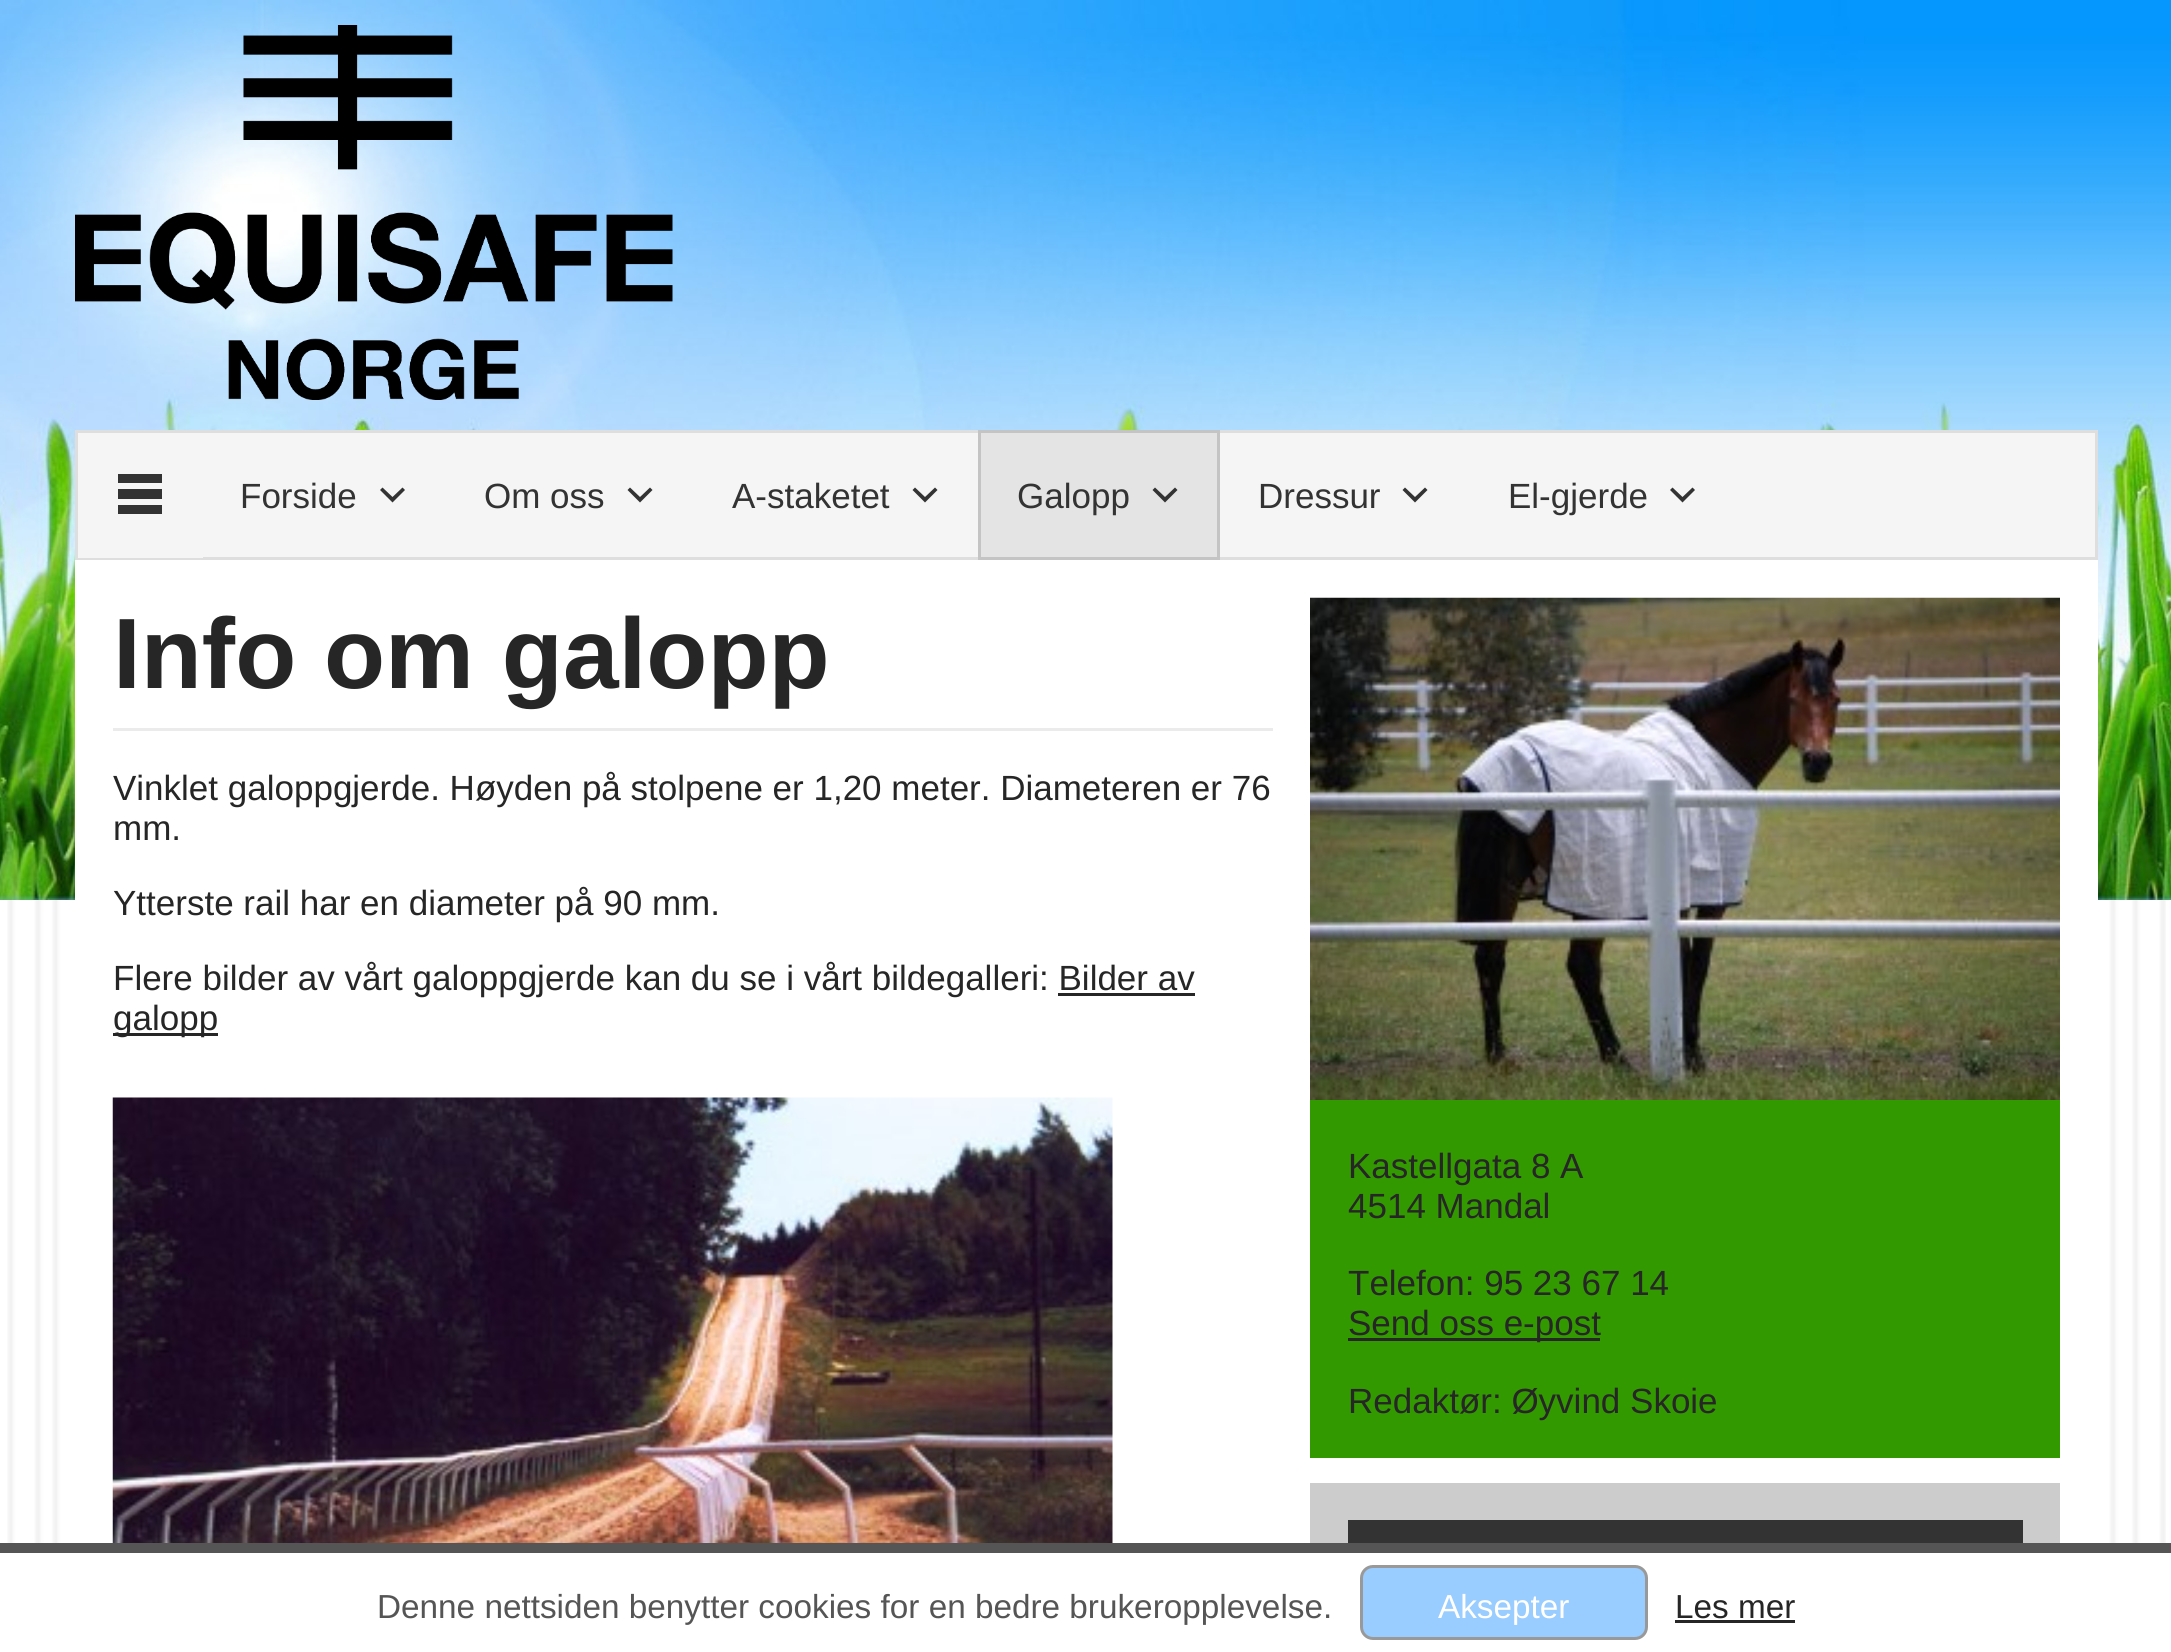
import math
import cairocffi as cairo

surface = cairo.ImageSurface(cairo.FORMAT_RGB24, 2171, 1652)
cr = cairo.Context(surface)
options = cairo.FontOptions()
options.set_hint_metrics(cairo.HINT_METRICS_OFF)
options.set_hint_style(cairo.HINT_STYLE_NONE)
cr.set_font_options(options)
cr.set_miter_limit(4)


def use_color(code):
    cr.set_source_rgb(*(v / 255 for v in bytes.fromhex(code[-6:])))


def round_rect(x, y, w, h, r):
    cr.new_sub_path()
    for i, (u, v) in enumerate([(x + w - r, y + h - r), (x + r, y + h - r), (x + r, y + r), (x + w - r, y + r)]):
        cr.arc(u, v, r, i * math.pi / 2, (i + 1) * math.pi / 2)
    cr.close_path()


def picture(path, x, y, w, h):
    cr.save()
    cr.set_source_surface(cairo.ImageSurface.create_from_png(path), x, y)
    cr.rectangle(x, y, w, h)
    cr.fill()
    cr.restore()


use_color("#ffffff")
cr.paint()
picture("img1.png", 7, 900, 2159, 643)
picture("img2.png", 0, 0, 2171, 900)
picture("img3.png", 75, 25, 598, 375)
use_color("#f5f5f5")
cr.rectangle(203, 433, 1892, 124)
cr.fill()
cr.rectangle(76.5, 431.5, 2020, 127)
use_color("#dedede")
cr.set_line_width(3)
cr.stroke()
use_color("#f5f5f5")
cr.rectangle(78, 433, 125, 125)
cr.fill()
use_color("#333333")
cr.new_path()
cr.move_to(162, 474)
cr.line_to(162, 483)
cr.line_to(118, 483)
cr.line_to(118, 474)
cr.close_path()
cr.move_to(118, 489)
cr.line_to(118, 499)
cr.line_to(162, 499)
cr.line_to(162, 489)
cr.close_path()
cr.move_to(162, 505)
cr.line_to(118, 505)
cr.line_to(118, 514)
cr.line_to(162, 514)
cr.close_path()
cr.fill()
cr.select_font_face("Liberation Sans")
cr.set_font_size(35)
cr.move_to(240, 508)
cr.show_text("Forside")
cr.new_path()
cr.move_to(402.5, 487.5)
cr.line_to(392.5, 497)
cr.line_to(382.5, 487.5)
cr.line_to(380, 490)
cr.line_to(392.5, 502.5)
cr.line_to(405, 490)
cr.close_path()
cr.fill()
cr.move_to(484, 508)
cr.show_text("Om oss")
cr.new_path()
cr.move_to(650, 487.5)
cr.line_to(640, 497)
cr.line_to(630, 487.5)
cr.line_to(627.5, 490)
cr.line_to(640, 502.5)
cr.line_to(652.5, 490)
cr.close_path()
cr.fill()
cr.move_to(732, 508)
cr.show_text("A-staketet")
cr.new_path()
cr.move_to(935, 487.5)
cr.line_to(925, 497)
cr.line_to(915, 487.5)
cr.line_to(912.5, 490)
cr.line_to(925, 502.5)
cr.line_to(937.5, 490)
cr.close_path()
cr.fill()
use_color("#e4e4e4")
cr.rectangle(979.5, 431.5, 239, 127)
cr.fill_preserve()
use_color("#c4c4c4")
cr.stroke()
use_color("#333333")
cr.move_to(1017, 508)
cr.show_text("Galopp")
cr.new_path()
cr.move_to(1175, 487.5)
cr.line_to(1165, 497)
cr.line_to(1155, 487.5)
cr.line_to(1152.5, 490)
cr.line_to(1165, 502.5)
cr.line_to(1177.5, 490)
cr.close_path()
cr.fill()
cr.move_to(1258, 508)
cr.show_text("Dressur")
cr.new_path()
cr.move_to(1425, 487.5)
cr.line_to(1415, 497)
cr.line_to(1405, 487.5)
cr.line_to(1402.5, 490)
cr.line_to(1415, 502.5)
cr.line_to(1427.5, 490)
cr.close_path()
cr.fill()
cr.move_to(1508, 508)
cr.show_text("El-gjerde")
cr.new_path()
cr.move_to(1692.5, 487.5)
cr.line_to(1682.5, 497)
cr.line_to(1672.5, 487.5)
cr.line_to(1670, 490)
cr.line_to(1682.5, 502.5)
cr.line_to(1695, 490)
cr.close_path()
cr.fill()
use_color("#ffffff")
cr.rectangle(75, 560, 2023, 983)
cr.fill()
cr.select_font_face("Liberation Sans", cairo.FONT_SLANT_NORMAL, cairo.FONT_WEIGHT_BOLD)
cr.set_font_size(100)
use_color("#262626")
cr.move_to(113, 688)
cr.show_text("Info om galopp")
use_color("#ebebeb")
cr.rectangle(113, 728, 1160, 3)
cr.fill()
cr.select_font_face("Liberation Sans")
cr.set_font_size(35)
use_color("#262626")
cr.move_to(113, 800)
cr.show_text("Vinklet galoppgjerde. Høyden på stolpene er 1,20 meter. Diameteren er 76")
cr.move_to(113, 840)
cr.show_text("mm.")
cr.move_to(113, 915)
cr.show_text("Ytterste rail har en diameter på 90 mm.")
cr.move_to(113, 990)
cr.show_text("Flere bilder av vårt galoppgjerde kan du se i vårt bildegalleri: Bilder av")
cr.rectangle(113, 1033, 105, 3)
cr.fill()
cr.move_to(113, 1030)
cr.show_text("galopp")
cr.rectangle(1058, 993, 137, 3)
cr.fill()
picture("img4.png", 112, 1097, 1001, 446)
use_color("#339900")
cr.rectangle(1310, 1100, 750, 358)
cr.fill()
picture("img5.png", 1310, 597, 750, 503)
use_color("#262626")
cr.move_to(1348, 1178)
cr.show_text("Kastellgata 8 A")
cr.move_to(1348, 1218)
cr.show_text("4514 Mandal")
cr.move_to(1348, 1295)
cr.show_text("Telefon: 95 23 67 14")
cr.rectangle(1348, 1338, 252, 3)
cr.fill()
cr.move_to(1348, 1335)
cr.show_text("Send oss e-post")
cr.move_to(1348, 1413)
cr.show_text("Redaktør: Øyvind Skoie")
use_color("#cccccc")
cr.rectangle(1310, 1483, 750, 60)
cr.fill()
use_color("#333333")
cr.rectangle(1348, 1520, 675, 23)
cr.fill()
use_color("#555555")
cr.rectangle(0, 1543, 2171, 10)
cr.fill()
cr.set_font_size(33.3)
cr.move_to(377, 1618)
cr.show_text("Denne nettsiden benytter cookies for en bedre brukeropplevelse.")
use_color("#99ccff")
round_rect(1361.5, 1566.5, 285, 72, 11.5)
cr.fill_preserve()
use_color("#999999")
cr.stroke()
use_color("#ffffff")
cr.move_to(1438, 1618)
cr.show_text("Aksepter")
use_color("#262626")
cr.move_to(1675, 1618)
cr.show_text("Les mer")
cr.rectangle(1675, 1620, 120, 3)
cr.fill()
surface.write_to_png("result.png")
